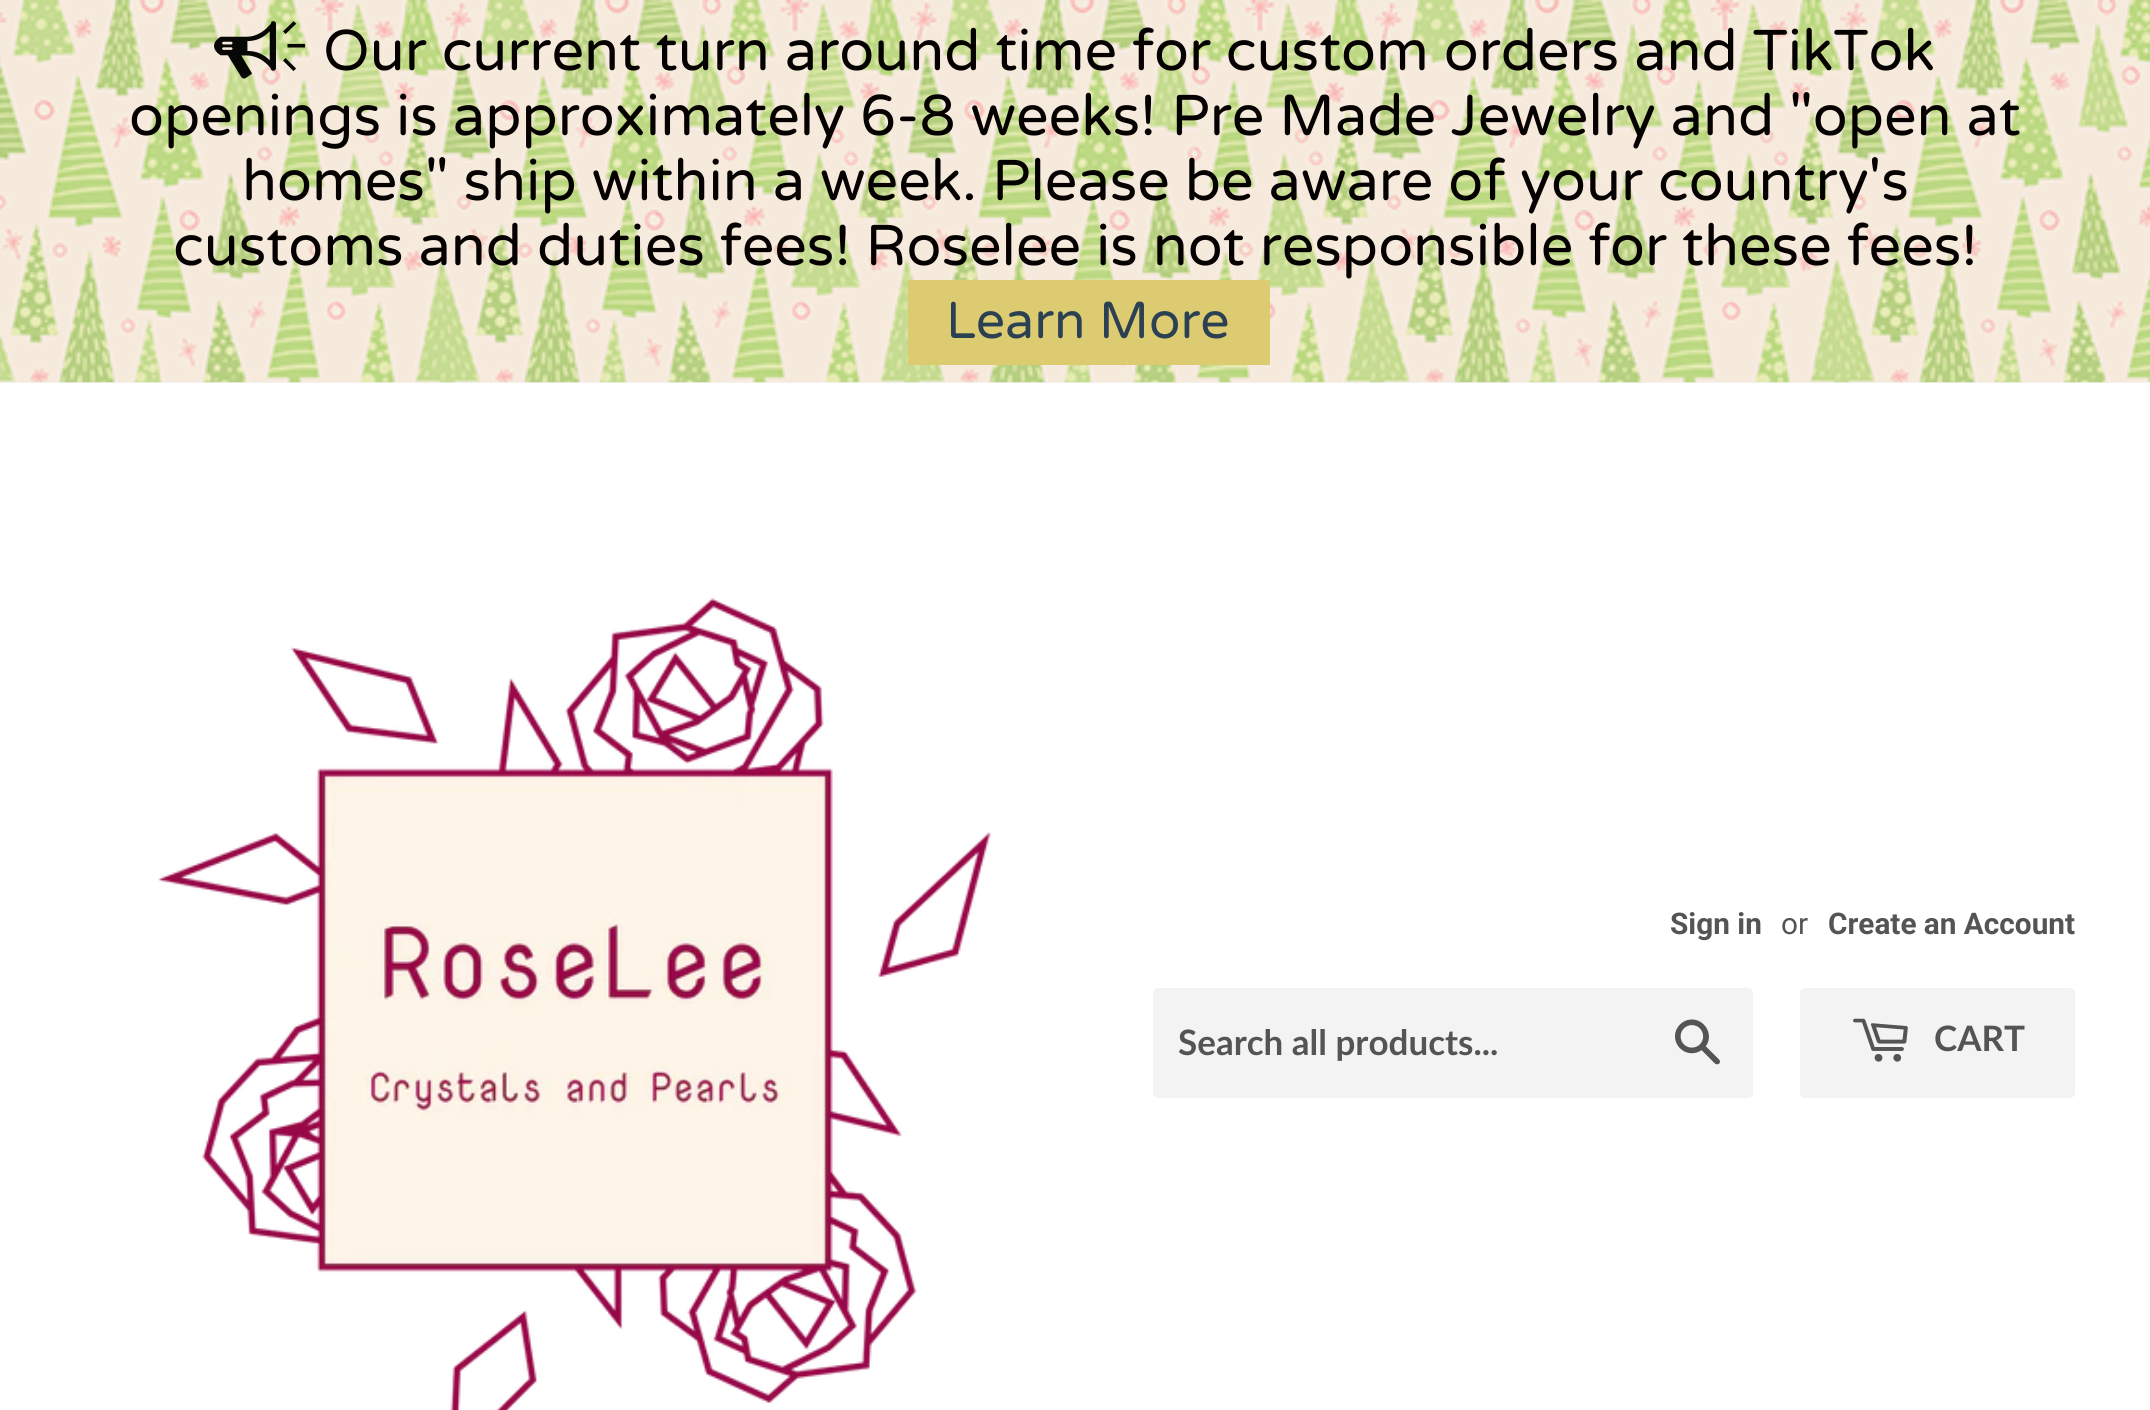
import math
import cairocffi as cairo

surface = cairo.ImageSurface(cairo.FORMAT_RGB24, 2150, 1410)
cr = cairo.Context(surface)
options = cairo.FontOptions()
options.set_hint_metrics(cairo.HINT_METRICS_OFF)
options.set_hint_style(cairo.HINT_STYLE_NONE)
cr.set_font_options(options)
cr.set_miter_limit(4)


def use_color(code):
    cr.set_source_rgb(*(v / 255 for v in bytes.fromhex(code[-6:])))


def round_rect(x, y, w, h, r):
    cr.new_sub_path()
    for i, (u, v) in enumerate([(x + w - r, y + h - r), (x + r, y + h - r), (x + r, y + r), (x + w - r, y + r)]):
        cr.arc(u, v, r, i * math.pi / 2, (i + 1) * math.pi / 2)
    cr.close_path()


def picture(path, x, y, w, h):
    cr.save()
    cr.set_source_surface(cairo.ImageSurface.create_from_png(path), x, y)
    cr.rectangle(x, y, w, h)
    cr.fill()
    cr.restore()


use_color("#f3f3f3")
cr.paint()
picture("img1.png", 0, 0, 2150, 383)
picture("img2.png", 214, 21, 92, 58)
cr.select_font_face("Varela Round")
cr.set_font_size(57.5)
use_color("#060101")
cr.move_to(323, 70)
cr.show_text("Our current turn around time for custom orders and TikTok")
cr.move_to(129, 135)
cr.show_text("openings is approximately 6-8 weeks! Pre Made Jewelry and \"open at")
cr.move_to(242, 200)
cr.show_text("homes\" ship within a week. Please be aware of your country's")
cr.move_to(173, 265)
cr.show_text("customs and duties fees! Roselee is not responsible for these fees!")
use_color("#dccb70")
cr.rectangle(908, 280, 362, 85)
cr.fill()
cr.set_font_size(51.75)
use_color("#2c4053")
cr.move_to(946, 338)
cr.show_text("Learn More")
use_color("#ffffff")
cr.rectangle(0, 383, 2150, 1027)
cr.fill()
picture("img3.png", 158, 598, 834, 812)
cr.select_font_face("Roboto", cairo.FONT_SLANT_NORMAL, cairo.FONT_WEIGHT_BOLD)
cr.set_font_size(29.75)
use_color("#545454")
cr.move_to(1670, 934)
cr.show_text("Sign in")
cr.select_font_face("Roboto")
cr.move_to(1781, 934)
cr.show_text("or")
cr.select_font_face("Roboto", cairo.FONT_SLANT_NORMAL, cairo.FONT_WEIGHT_BOLD)
cr.move_to(1828, 934)
cr.show_text("Create an Account")
use_color("#f3f3f3")
round_rect(1153, 988, 600, 110, 5)
cr.fill()
cr.select_font_face("Lato", cairo.FONT_SLANT_NORMAL, cairo.FONT_WEIGHT_BOLD)
cr.set_font_size(35)
use_color("#545454")
cr.move_to(1178, 1055)
cr.show_text("Search all products...")
picture("img4.png", 1675, 1019, 45, 46)
use_color("#f3f3f3")
round_rect(1800, 988, 275, 110, 5)
cr.fill()
picture("img5.png", 1853, 1018, 55, 44)
use_color("#545454")
cr.move_to(1934, 1051)
cr.show_text("CART")
surface.write_to_png("result.png")
